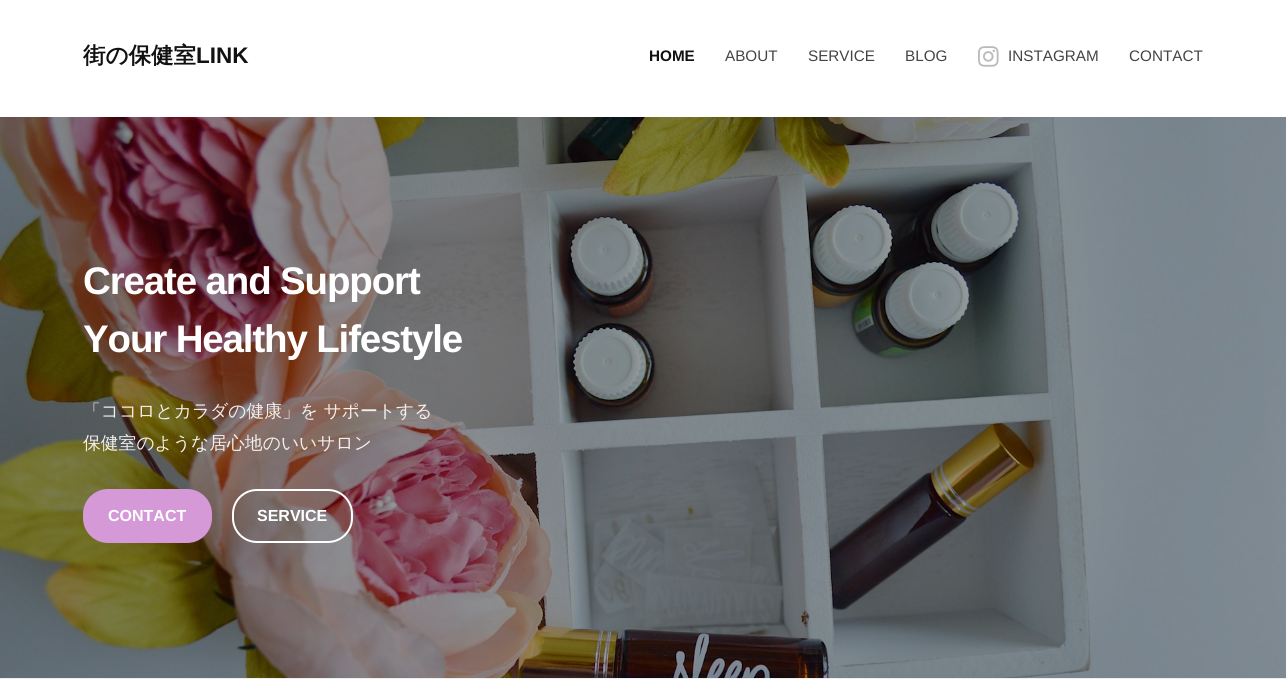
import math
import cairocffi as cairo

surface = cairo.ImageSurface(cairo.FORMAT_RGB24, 1286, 686)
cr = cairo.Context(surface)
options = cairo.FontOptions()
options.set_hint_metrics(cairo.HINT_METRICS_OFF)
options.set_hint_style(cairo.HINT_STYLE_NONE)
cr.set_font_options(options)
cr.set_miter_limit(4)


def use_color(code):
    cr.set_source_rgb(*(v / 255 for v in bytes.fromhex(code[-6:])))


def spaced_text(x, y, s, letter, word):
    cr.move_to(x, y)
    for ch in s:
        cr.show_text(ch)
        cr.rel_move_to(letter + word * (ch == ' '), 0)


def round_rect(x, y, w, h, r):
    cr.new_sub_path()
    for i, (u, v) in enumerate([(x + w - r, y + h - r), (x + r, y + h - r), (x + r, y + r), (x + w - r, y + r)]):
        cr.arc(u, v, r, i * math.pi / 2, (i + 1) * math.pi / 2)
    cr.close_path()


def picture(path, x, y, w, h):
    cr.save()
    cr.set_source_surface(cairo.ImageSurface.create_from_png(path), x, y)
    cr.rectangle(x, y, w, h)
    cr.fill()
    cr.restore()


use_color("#ffffff")
cr.paint()
use_color("#eeeeee")
cr.rectangle(0, 678, 1286, 1)
cr.fill()
cr.select_font_face("WenQuanYi Zen Hei", cairo.FONT_SLANT_NORMAL, cairo.FONT_WEIGHT_BOLD)
cr.set_font_size(22.5)
use_color("#111111")
cr.move_to(83, 63)
cr.show_text("街の保健室")
cr.select_font_face("Liberation Sans", cairo.FONT_SLANT_NORMAL, cairo.FONT_WEIGHT_BOLD)
cr.move_to(196, 63)
cr.show_text("LINK")
cr.set_font_size(15.25)
cr.move_to(649, 61)
cr.show_text("HOME")
cr.select_font_face("Liberation Sans")
use_color("#444444")
cr.move_to(725, 61)
cr.show_text("ABOUT")
cr.move_to(808, 61)
cr.show_text("SERVICE")
cr.move_to(905, 61)
cr.show_text("BLOG")
picture("img1.png", 978, 46, 21, 21)
cr.move_to(1008, 61)
cr.show_text("INSTAGRAM")
cr.move_to(1129, 61)
cr.show_text("CONTACT")
picture("img2.png", 0, 117, 1286, 561)
cr.select_font_face("Liberation Sans", cairo.FONT_SLANT_NORMAL, cairo.FONT_WEIGHT_BOLD)
cr.set_font_size(38.5)
use_color("#ffffff")
spaced_text(83, 294, "Create and Support", -1.15, 0)
spaced_text(83, 352, "Your Healthy Lifestyle", -1.15, 0)
cr.select_font_face("WenQuanYi Zen Hei Medium")
cr.set_font_size(17.8)
use_color("#f2efed")
cr.move_to(83, 417)
cr.show_text("「ココロとカラダの健康」を サポートする")
cr.move_to(83, 449)
cr.show_text("保健室のような居心地のいいサロン")
use_color("#d599d8")
round_rect(83, 489, 129, 54, 25)
cr.fill()
cr.select_font_face("Liberation Sans", cairo.FONT_SLANT_NORMAL, cairo.FONT_WEIGHT_BOLD)
cr.set_font_size(16)
use_color("#ffffff")
cr.move_to(108, 521)
cr.show_text("CONTACT")
round_rect(233, 490, 119, 52, 24)
cr.stroke()
cr.move_to(257, 521)
cr.show_text("SERVICE")
surface.write_to_png("result.png")
